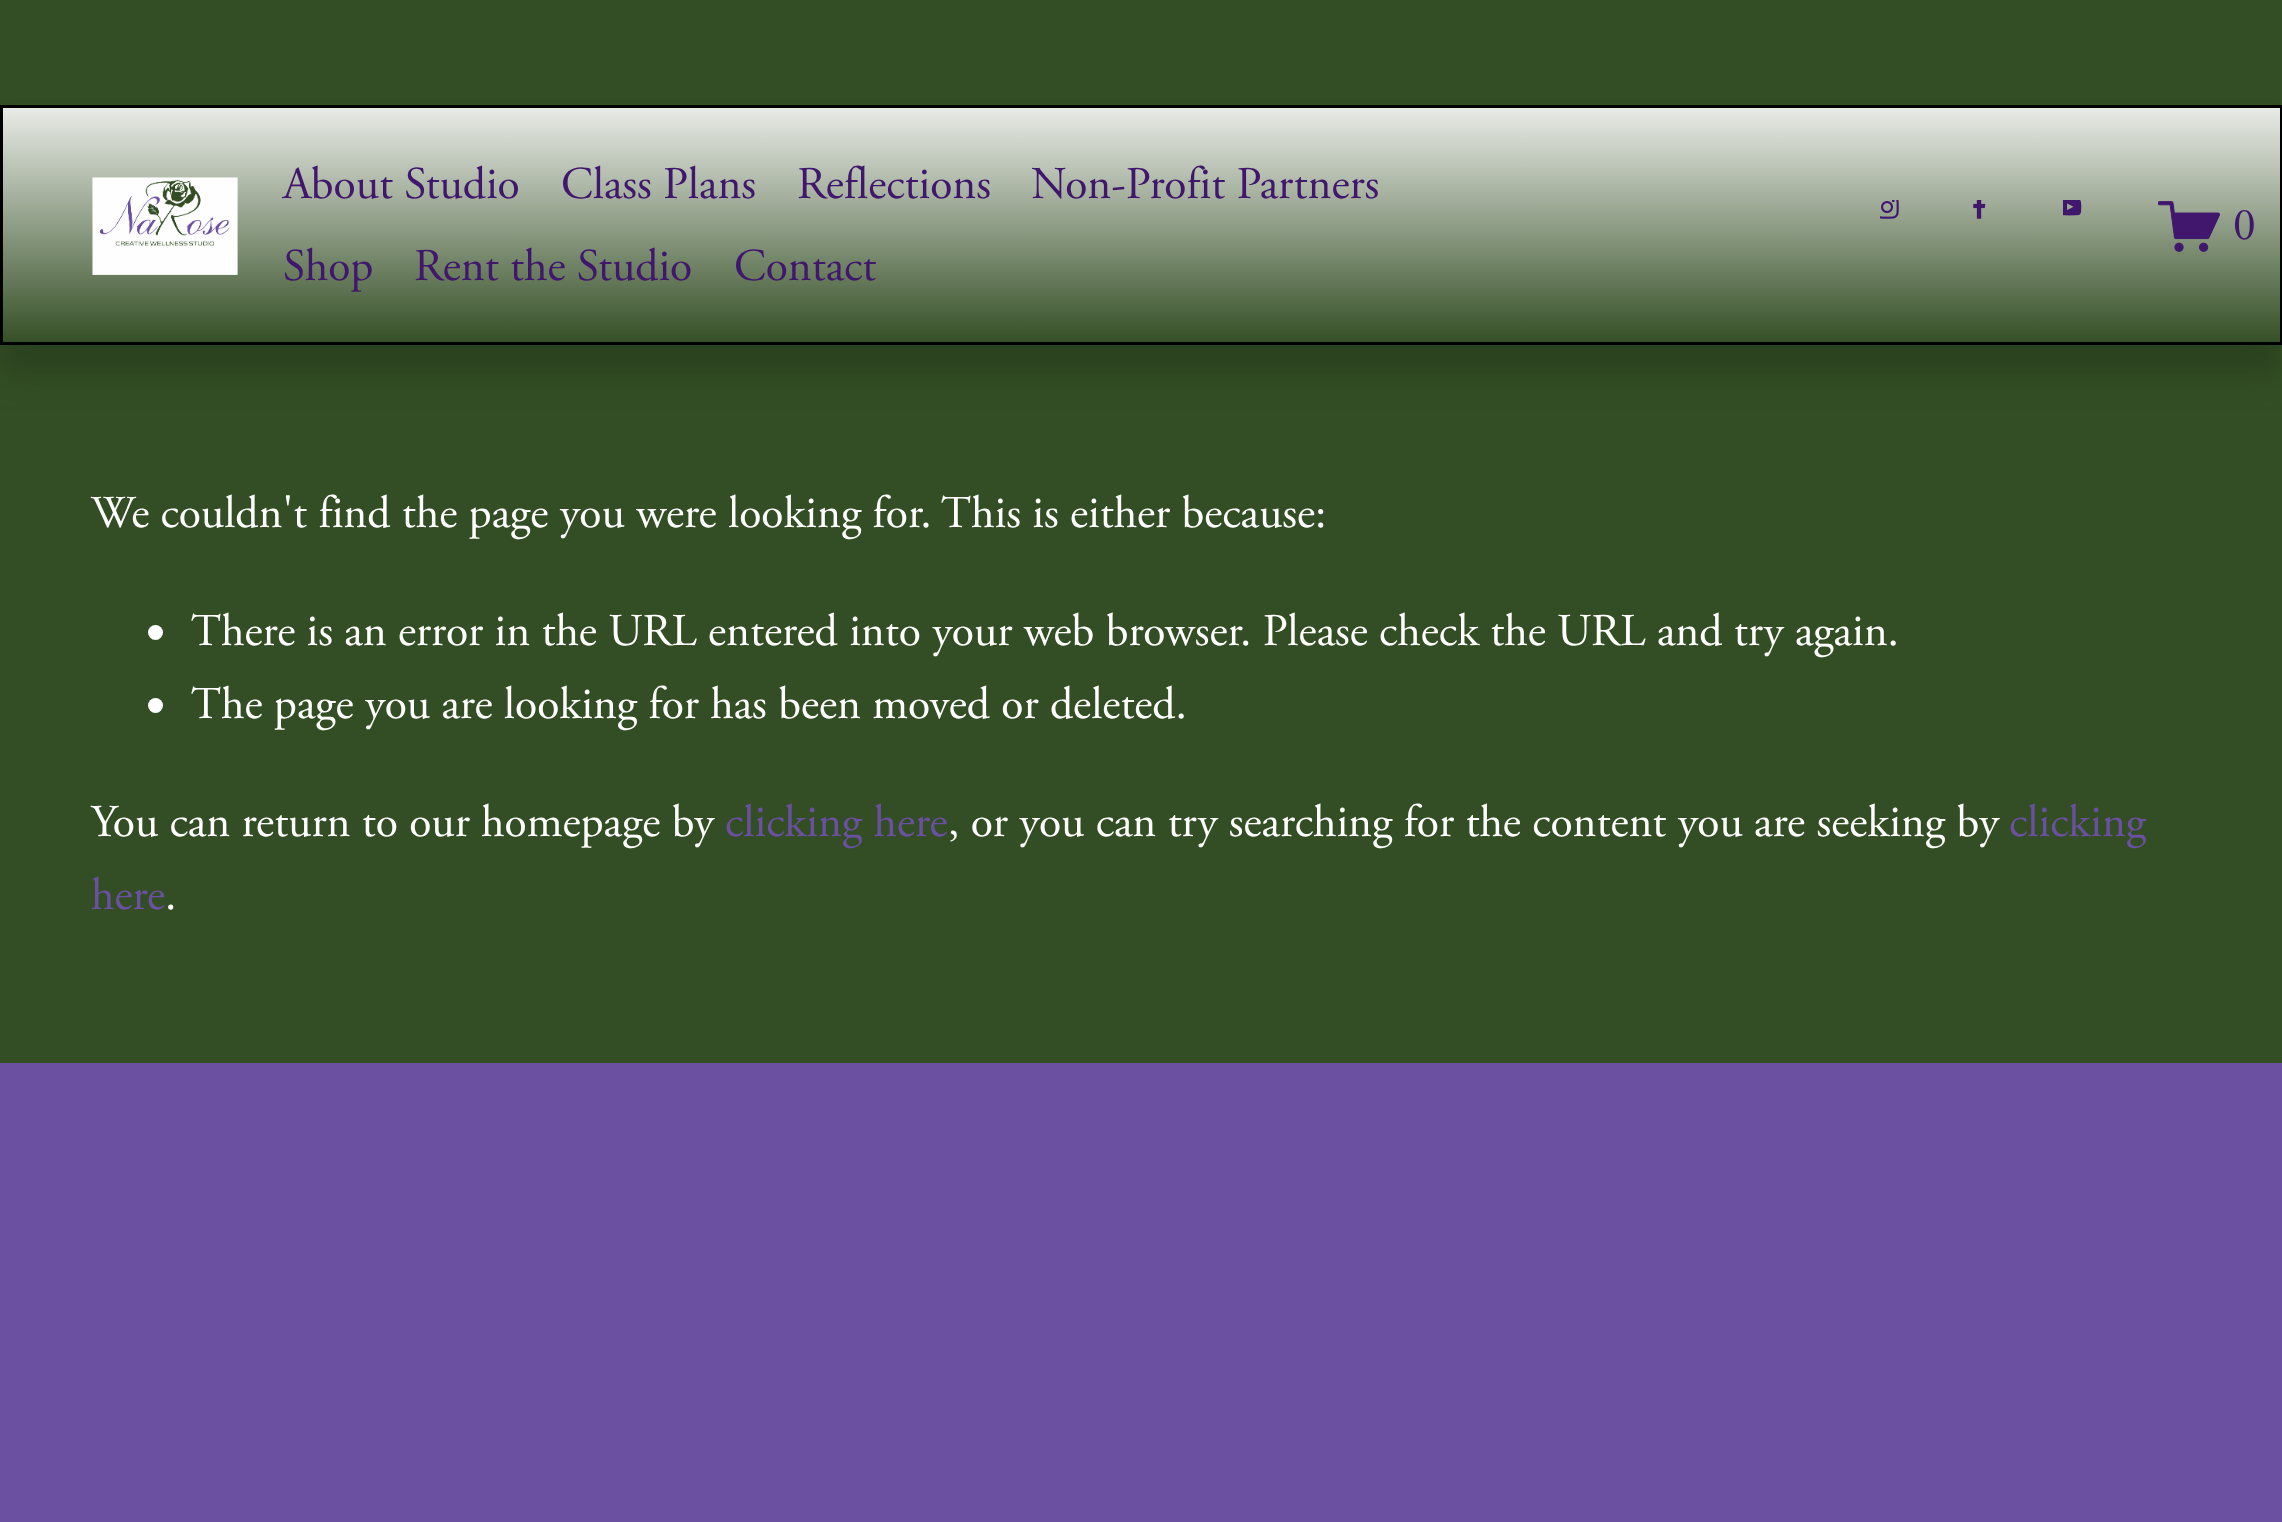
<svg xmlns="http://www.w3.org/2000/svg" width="2282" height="1522">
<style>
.a{font:45.5px Adobe Garamond;fill:#41176d}
.b{font:45.5px Adobe Garamond;fill:#fff}
.c{font:45.5px Adobe Garamond;fill:#6b50a2}
</style>
<defs>
<linearGradient id="g1" gradientUnits="userSpaceOnUse" x1="1141" y1="105" x2="1141" y2="345"><stop offset="0" stop-color="#ebede9"/><stop offset="1" stop-color="#334e24"/></linearGradient>
</defs>
<rect width="100%" height="100%" fill="#334e24"/>
<path fill="#2b421f" filter="blur(15px)" d="M0 135h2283v240H0z"/>
<path fill="url(#g1)" d="M3 108h2277v234H3z"/>
<path fill="none" stroke="#000" stroke-width="3" d="M1.5 106.5h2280v237H1.5z"/>
<image href="1.png" x="92" y="177" width="146" height="98"/>
<image href="2.png" x="1880" y="200" width="19" height="19"/>
<image href="3.png" x="1973" y="200" width="13" height="19"/>
<image href="4.png" x="2063" y="200" width="19" height="16"/>
<image href="5.png" x="2158" y="201" width="62" height="51"/>
<circle fill="#fff" cx="155.5" cy="632.5" r="7.5"/>
<circle fill="#fff" cx="155.5" cy="705.5" r="7.5"/>
<path fill="#6b50a2" d="M0 1063h2282v459H0z"/>
<text class="a" x="283" y="198">About Studio</text>
<text class="a" x="561" y="198">Class Plans</text>
<text class="a" x="797" y="198">Reflections</text>
<text class="a" x="1031" y="198">Non-Profit Partners</text>
<text class="a" x="283" y="280">Shop</text>
<text class="a" x="414" y="280">Rent the Studio</text>
<text class="a" x="734" y="280">Contact</text>
<text class="a" x="2233" y="239">0</text>
<text class="b" x="91" y="527">We couldn't find the page you were looking for. This is either because:</text>
<text class="b" x="191" y="645">There is an error in the URL entered into your web browser. Please check the URL and try again.</text>
<text class="b" x="191" y="718">The page you are looking for has been moved or deleted.</text>
<text class="b" x="91" y="836">You can return to our homepage by</text>
<text class="c" x="725" y="836">clicking here</text>
<text class="b" x="948" y="836">, or you can try searching for the content you are seeking by</text>
<text class="c" x="2009" y="836">clicking</text>
<text class="c" x="91" y="909">here</text>
<text class="b" x="165" y="909">.</text>
</svg>
